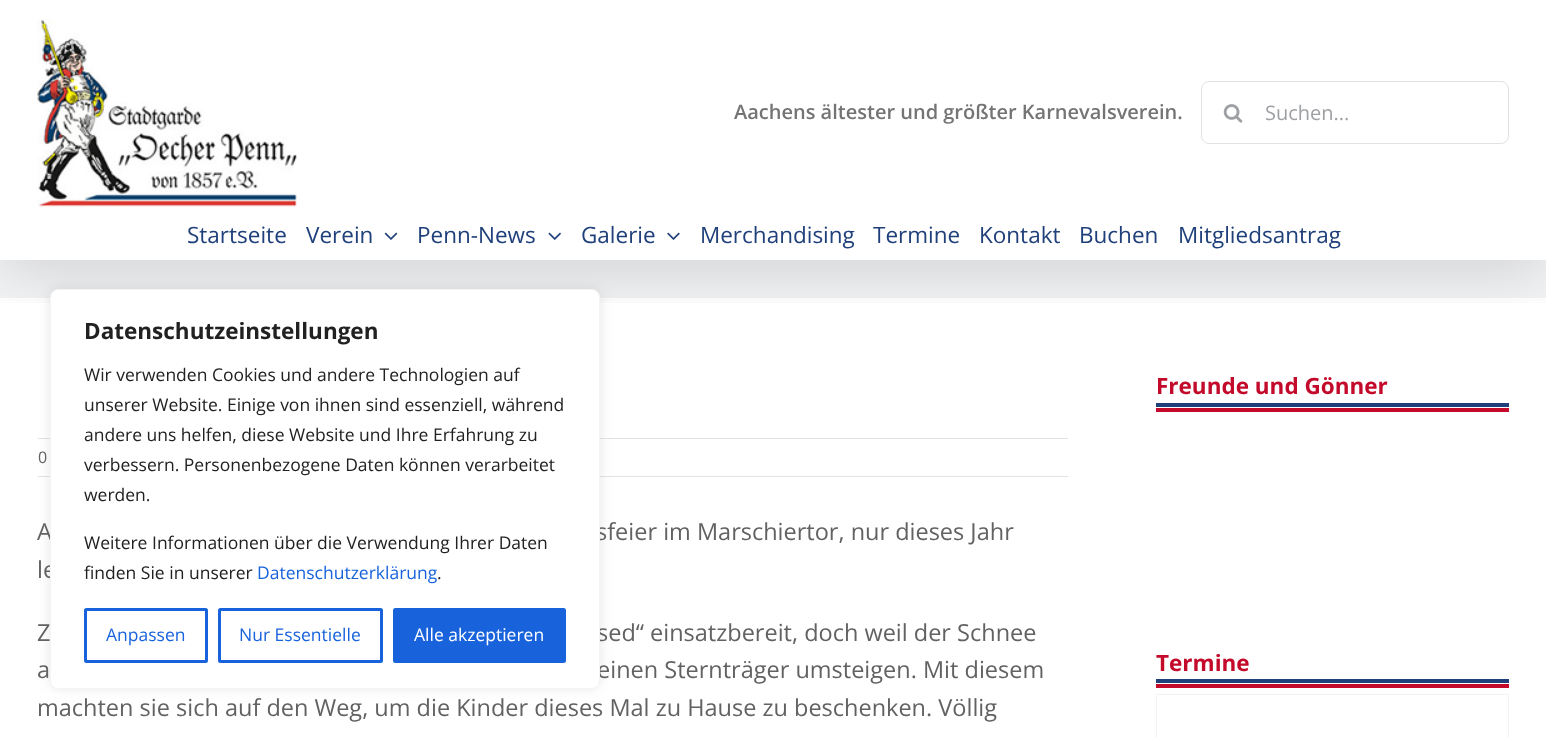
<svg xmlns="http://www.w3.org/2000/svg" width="1546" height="738">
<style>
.a{font:600 20px Open Sans;fill:#747474}
.b{font:20px Open Sans;fill:#9ea0a4}
.c{font:22.5px Open Sans;fill:#20407b}
.d{font:16px Open Sans;fill:#626262}
.e{font:23.5px Open Sans;fill:#626262}
.f{font:bold 22.5px Open Sans;fill:#c30a2a}
.g{font:bold 22.5px Open Sans;fill:#212121}
.h{font:17.5px Open Sans;fill:#212121}
.i{font:17.5px Open Sans;fill:#1863dc}
.j{font:17.5px Open Sans;fill:#fff}
</style>
<defs>
<clipPath id="clip1"><path d="M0 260h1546v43H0z"/></clipPath>
</defs>
<rect width="100%" height="100%" fill="#fff"/>
<path fill="#f2f3f5" d="M0 260h1546v38H0z"/>
<g clip-path="url(#clip1)">
<path fill="#00000024" filter="blur(31px)" d="M3 15h1541v255H3z"/>
</g>
<image href="1.png" x="37" y="19" width="260" height="188"/>
<rect fill="none" stroke="#e2e2e2" x="1201.5" y="81.5" width="307" height="62" rx="7.5"/>
<image href="2.png" x="1223" y="104" width="20" height="19"/>
<image href="3.png" x="384" y="232" width="14" height="8"/>
<image href="4.png" x="548" y="232" width="13" height="8"/>
<image href="5.png" x="667" y="232" width="13" height="8"/>
<path fill="#e2e2e2" d="M38 438h1030v1H38z"/>
<path fill="#e2e2e2" d="M38 476h1030v1H38z"/>
<path fill="#c30a2a" d="M1156 408h353v4H1156z"/>
<path fill="#20407b" d="M1156 403h353v4H1156z"/>
<path fill="#c30a2a" d="M1156 684h353v4H1156z"/>
<path fill="#20407b" d="M1156 679h353v4H1156z"/>
<path fill="none" stroke="#f2f3f5" d="M1156.5 694.5h352v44H1156.5z"/>
<rect fill="#acabab4d" filter="blur(6px)" x="50" y="288" width="550" height="400" rx="8"/>
<text class="a" x="734" y="119">Aachens ältester und größter Karnevalsverein.</text>
<text class="b" x="1265" y="120">Suchen...</text>
<text class="c" x="187" y="243">Startseite</text>
<text class="c" x="306" y="243">Verein</text>
<text class="c" x="417" y="243">Penn-News</text>
<text class="c" x="581" y="243">Galerie</text>
<text class="c" x="700" y="243">Merchandising</text>
<text class="c" x="873" y="243">Termine</text>
<text class="c" x="979" y="243">Kontakt</text>
<text class="c" x="1079" y="243">Buchen</text>
<text class="c" x="1178" y="243">Mitgliedsantrag</text>
<text class="d" x="38" y="463">0</text>
<text class="e" x="37" y="540">A</text>
<text class="e" x="596" y="540">sfeier im Marschiertor, nur dieses Jahr</text>
<text class="e" x="37" y="578">le</text>
<text class="e" x="37" y="641">Z</text>
<text class="e" x="597" y="641">sed“ einsatzbereit, doch weil der Schnee</text>
<text class="e" x="37" y="678">a</text>
<text class="e" x="597" y="678">einen Sternträger umsteigen. Mit diesem</text>
<text class="e" x="37" y="716">machten sie sich auf den Weg, um die Kinder dieses Mal zu Hause zu beschenken. Völlig</text>
<text class="f" x="1156" y="394">Freunde und Gönner</text>
<text class="f" x="1156" y="671">Termine</text>
<rect fill="#fff" stroke="#f4f4f4" x="50.5" y="289.5" width="549" height="399" rx="7.5"/>
<text class="g" x="84" y="339">Datenschutzeinstellungen</text>
<text class="h" x="84" y="381">Wir verwenden Cookies und andere Technologien auf</text>
<text class="h" x="84" y="411">unserer Website. Einige von ihnen sind essenziell, während</text>
<text class="h" x="84" y="441">andere uns helfen, diese Website und Ihre Erfahrung zu</text>
<text class="h" x="84" y="471">verbessern. Personenbezogene Daten können verarbeitet</text>
<text class="h" x="84" y="501">werden.</text>
<text class="h" x="84" y="549">Weitere Informationen über die Verwendung Ihrer Daten</text>
<text class="h" x="84" y="579">finden Sie in unserer</text>
<text class="i" x="257" y="579">Datenschutzerklärung</text>
<text class="h" x="437" y="579">.</text>
<rect fill="none" stroke="#1863dc" stroke-width="3" x="85.5" y="609.5" width="121" height="52" rx="1"/>
<text class="i" x="106" y="641">Anpassen</text>
<rect fill="none" stroke="#1863dc" stroke-width="3" x="219.5" y="609.5" width="162" height="52" rx="1"/>
<text class="i" x="239" y="641">Nur Essentielle</text>
<rect fill="#1863dc" stroke="#1863dc" stroke-width="3" x="394.5" y="609.5" width="170" height="52" rx="1"/>
<text class="j" x="414" y="641">Alle akzeptieren</text>
</svg>
